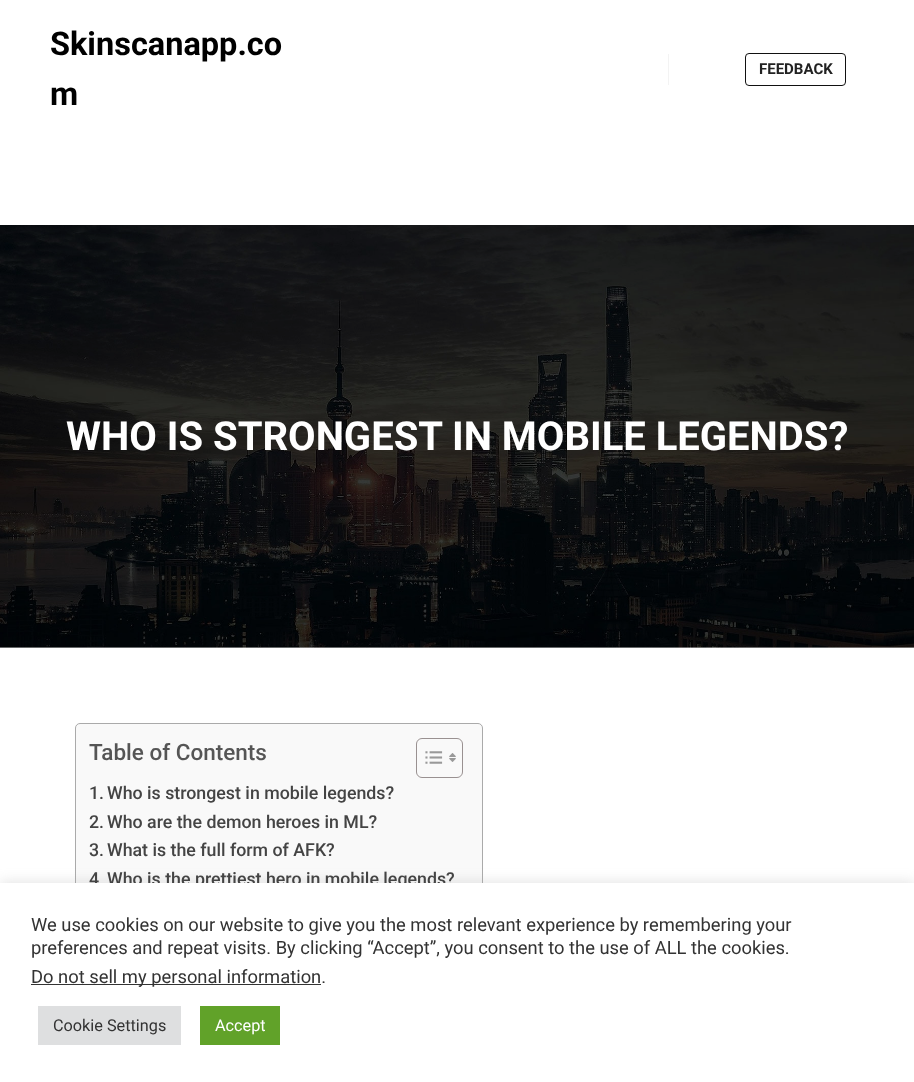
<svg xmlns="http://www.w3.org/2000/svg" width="914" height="1082">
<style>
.a{font:bold 32.5px Roboto;fill:#000}
.b{font:bold 15px Roboto;fill:#222}
.c{font:bold 40px Roboto;fill:#fff}
.d{font:500 22.5px Roboto;fill:#555}
.e{font:500 17.8px Roboto;fill:#444}
.f{font:18.35px Roboto;fill:#333}
.g{font:16.25px Roboto;fill:#333}
.h{font:16.25px Roboto;fill:#fff}
</style>
<rect width="100%" height="100%" fill="#fff"/>
<path fill="#ccc" d="M0 647h914v1H0z"/>
<path fill="#f3f3f3" d="M668 54h1v31H668z"/>
<rect fill="none" stroke="#111" x="745.5" y="53.5" width="100" height="32" rx="3.5"/>
<image href="1.png" x="0" y="225" width="914" height="423"/>
<rect fill="#f9f9f9" stroke="#aaa" x="75.5" y="723.5" width="407" height="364" rx="4.5"/>
<rect fill="none" stroke="#999191" x="416.5" y="738.5" width="46" height="39" rx="5.5"/>
<image href="2.png" x="425" y="751" width="18" height="13"/>
<image href="3.png" x="449" y="753" width="7" height="9"/>
<path fill="#acabab4d" filter="blur(6px)" d="M0 881h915v200H0z"/>
<text class="a" x="50" y="55">Skinscanapp.co</text>
<text class="a" x="50" y="105">m</text>
<text class="b" x="759" y="74">FEEDBACK</text>
<text class="c" x="66" y="450">WHO IS STRONGEST IN MOBILE LEGENDS?</text>
<text class="d" x="89" y="760">Table of Contents</text>
<text class="e" x="89" y="799">1.</text>
<text class="e" x="107" y="799">Who is strongest in mobile legends?</text>
<text class="e" x="89" y="828">2.</text>
<text class="e" x="107" y="828">Who are the demon heroes in ML?</text>
<text class="e" x="89" y="856">3.</text>
<text class="e" x="107" y="856">What is the full form of AFK?</text>
<text class="e" x="89" y="885">4</text>
<text class="e" x="107" y="885">Who is the prettiest hero in mobile legends?</text>
<path fill="#fff" d="M0 883h914v199H0z"/>
<text class="f" x="31" y="931">We use cookies on our website to give you the most relevant experience by remembering your</text>
<text class="f" x="31" y="954">preferences and repeat visits. By clicking “Accept”, you consent to the use of ALL the cookies.</text>
<path fill="#333" d="M31 984h290v1H31z"/>
<text class="f" x="31" y="983">Do not sell my personal information.</text>
<path fill="#dedfe0" d="M38 1006h143v39H38z"/>
<text class="g" x="53" y="1031">Cookie Settings</text>
<path fill="#61a229" d="M200 1006h80v39H200z"/>
<text class="h" x="215" y="1031">Accept</text>
</svg>
